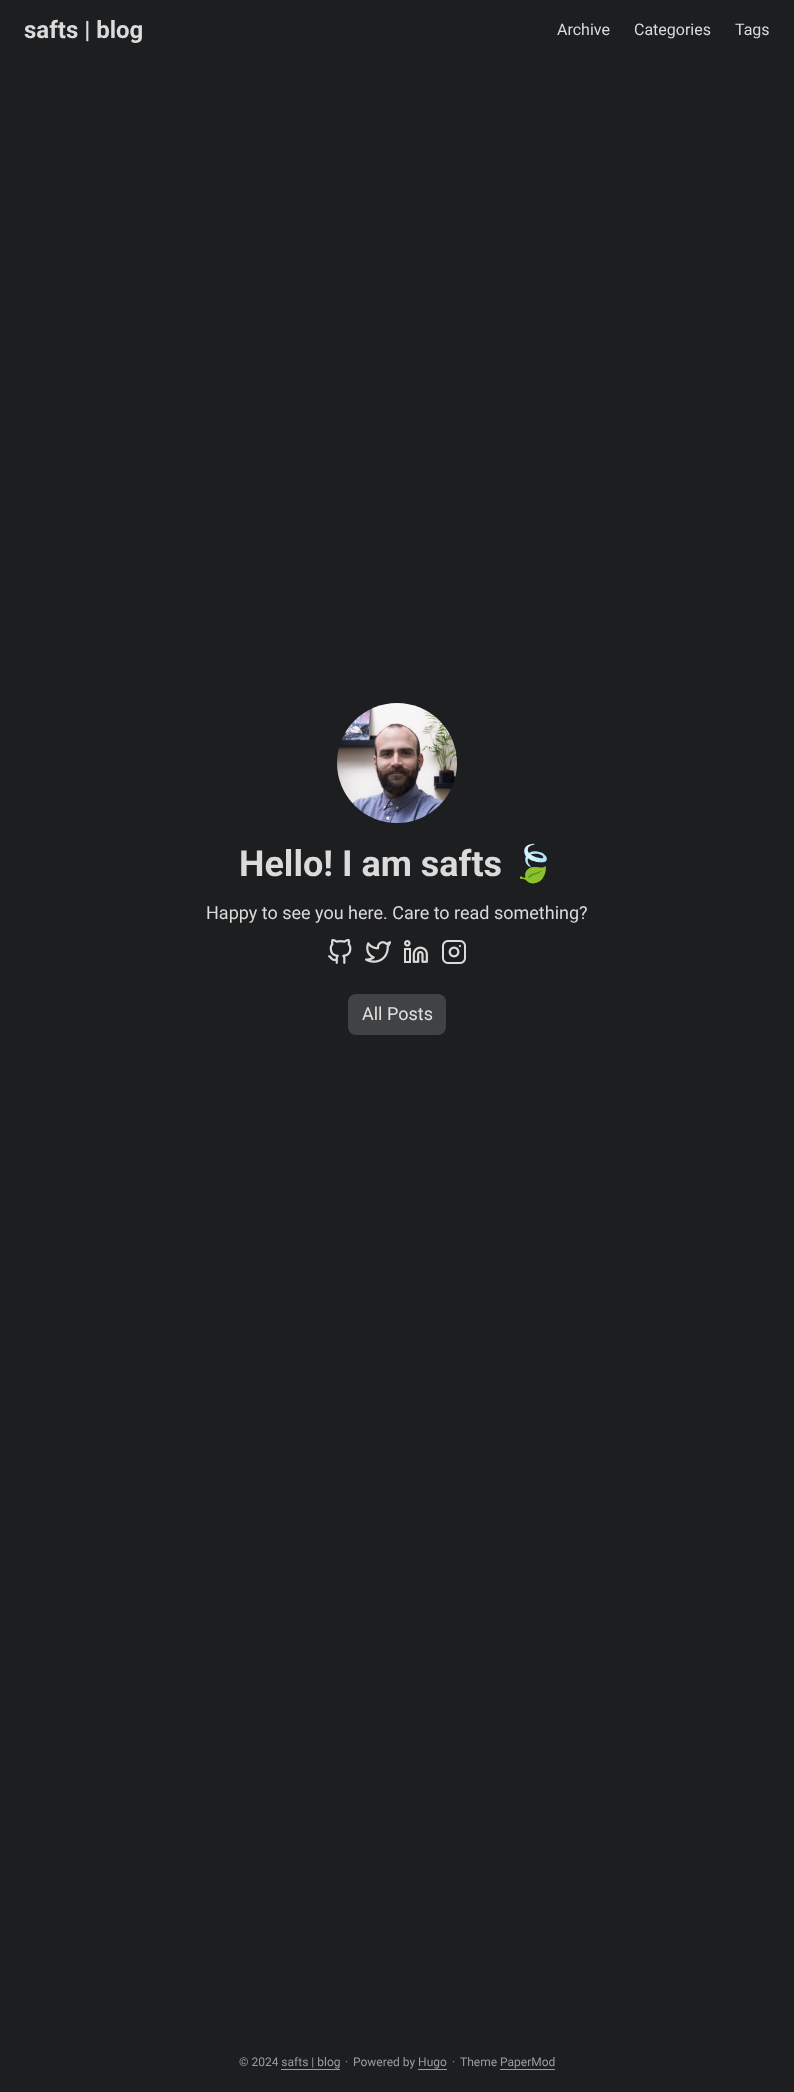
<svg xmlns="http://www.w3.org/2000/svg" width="794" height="2092">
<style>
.a{font:bold 24px Roboto;fill:#dbdbdb}
.b{font:16px Roboto;fill:#dbdbdb}
.c{font:bold 36px Roboto;fill:#dbdbdb}
.d{font:bold 36px Noto Color Emoji;fill:#dbdbdb}
.e{font:18px Roboto;fill:#dbdbdb}
.f{font:18px Roboto;fill:#e1e1e1}
.g{font:12px Roboto;fill:#9c9c9d}
</style>
<rect width="100%" height="100%" fill="#1d1e20"/>
<image href="1.png" x="337" y="703" width="120" height="120"/>
<image href="2.png" x="328" y="939" width="24" height="25"/>
<image href="3.png" x="365" y="941" width="26" height="22"/>
<image href="4.png" x="404" y="940" width="24" height="23"/>
<image href="5.png" x="442" y="940" width="24" height="24"/>
<rect fill="#414244" x="348" y="994" width="98" height="41" rx="8"/>
<path fill="#9c9c9d" d="M281 2069h59v1H281z"/>
<path fill="#9c9c9d" d="M418 2069h29v1H418z"/>
<path fill="#9c9c9d" d="M500 2069h55v1H500z"/>
<text class="a" x="24" y="38">safts | blog</text>
<text class="b" x="557" y="35">Archive</text>
<text class="b" x="634" y="35">Categories</text>
<text class="b" x="735" y="35">Tags</text>
<text class="c" x="239" y="876">Hello! I am safts</text>
<text class="d" x="511" y="876">🍃</text>
<text class="e" x="206" y="919">Happy to see you here. Care to read something?</text>
<text class="f" x="362" y="1020">All Posts</text>
<text class="g" x="239" y="2066">© 2024 safts | blog</text>
<text class="g" x="345" y="2066">·</text>
<text class="g" x="353" y="2066">Powered by Hugo</text>
<text class="g" x="452" y="2066">·</text>
<text class="g" x="460" y="2066">Theme PaperMod</text>
</svg>
